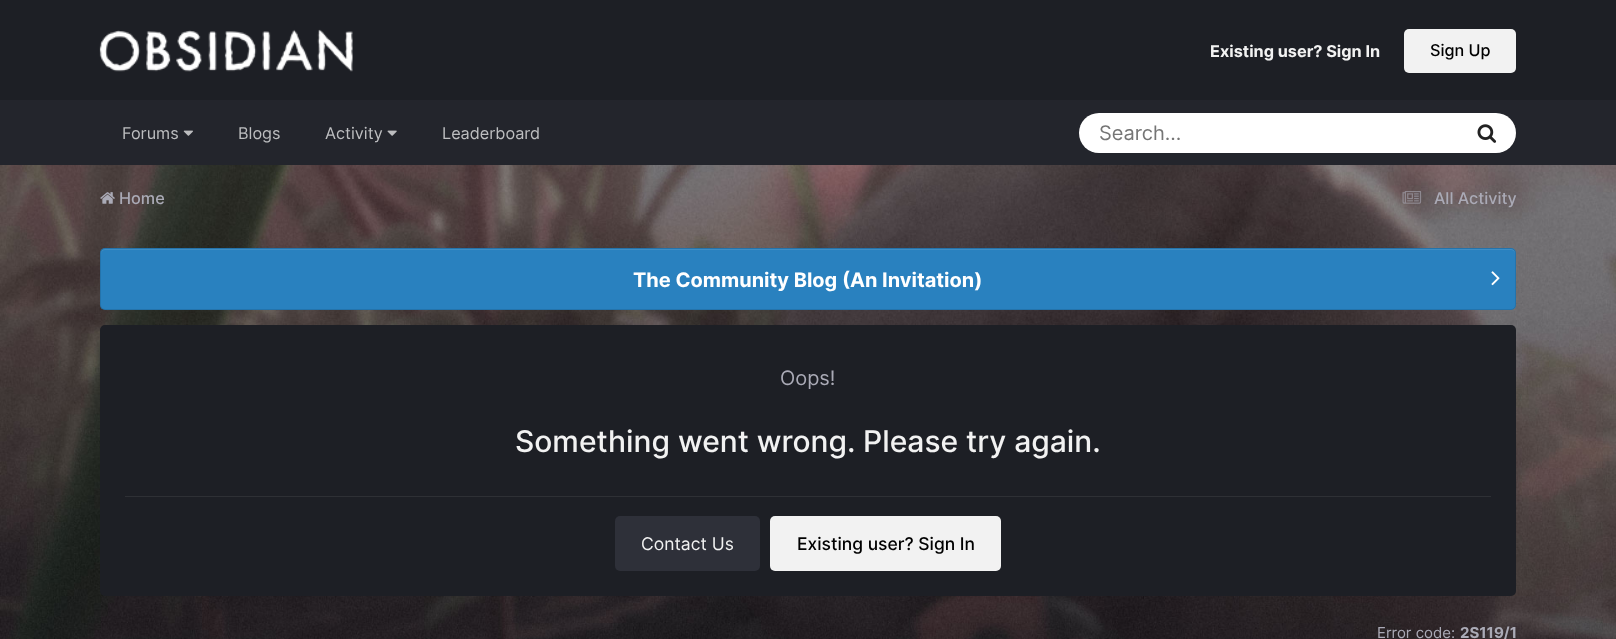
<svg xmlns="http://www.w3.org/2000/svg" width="1616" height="639">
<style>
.a{font:bold 16.25px Inter;fill:#f2f2f2}
.b{font:500 16.25px Inter;fill:#000}
.c{font:16.25px Inter;fill:#bdbec0}
.d{font:20px Inter;fill:#757575}
.e{font:500 16.25px Inter;fill:#aaaab6}
.f{font:bold 20px Inter;fill:#fff}
.g{font:20px Inter;fill:#aaaab6}
.h{font:500 30px Inter;fill:#f2f2f2}
.i{font:17.5px Inter;fill:#f2f2f2}
.j{font:500 17.5px Inter;fill:#000}
.k{font:15px Inter;fill:#aaaab6}
.l{font:bold 15px Inter;fill:#aaaab6}
</style>
<rect width="100%" height="100%" fill="#fff"/>
<path fill="#1d1f25" d="M0 0h1616v100H0z"/>
<image href="1.png" x="99" y="29" width="254" height="43"/>
<rect fill="#f2f2f2" x="1404" y="29" width="112" height="44" rx="5"/>
<path fill="#23252c" d="M0 100h1616v65H0z"/>
<image href="2.png" x="183" y="130" width="10" height="6"/>
<image href="3.png" x="387" y="130" width="10" height="6"/>
<rect fill="#fff" x="1079" y="113" width="437" height="40" rx="20"/>
<image href="4.png" x="1477" y="124" width="20" height="19"/>
<image href="5.png" x="0" y="165" width="1616" height="474"/>
<image href="6.png" x="100" y="192" width="15" height="12"/>
<image href="7.png" x="1402" y="191" width="20" height="13"/>
<rect fill="#2981bf" x="100" y="248" width="1416" height="62" rx="5"/>
<path fill="#3e8ec5" d="M105 250h1406c2 0 4 2 4 4v-1c0-2-2-4-4-4h-1406c-2 0-4 2-4 4v1c0-2 2-4 4-4z"/>
<rect fill="none" stroke="#0000001a" x="100.5" y="248.5" width="1415" height="61" rx="4.5"/>
<image href="8.png" x="1491" y="271" width="9" height="15"/>
<rect fill="#1d1f25" x="100" y="325" width="1416" height="271" rx="5"/>
<path fill="#2e3035" d="M125 496h1366v1H125z"/>
<rect fill="#2e3039" x="615" y="516" width="145" height="55" rx="5"/>
<rect fill="#f2f2f2" x="770" y="516" width="231" height="55" rx="5"/>
<text class="a" x="1210" y="57">Existing user? Sign In</text>
<text class="b" x="1430" y="56">Sign Up</text>
<text class="c" x="122" y="139">Forums</text>
<text class="c" x="238" y="139">Blogs</text>
<text class="c" x="325" y="139">Activity</text>
<text class="c" x="442" y="139">Leaderboard</text>
<text class="d" x="1099" y="140">Search...</text>
<text class="e" x="119" y="204">Home</text>
<text class="e" x="1434" y="204">All Activity</text>
<text class="f" x="633" y="287">The Community Blog (An Invitation)</text>
<text class="g" x="780" y="385">Oops!</text>
<text class="h" x="515" y="452">Something went wrong. Please try again.</text>
<text class="i" x="641" y="550">Contact Us</text>
<text class="j" x="797" y="550">Existing user? Sign In</text>
<text class="k" x="1377" y="638">Error code:</text>
<text class="l" x="1460" y="638">2S119/1</text>
</svg>
